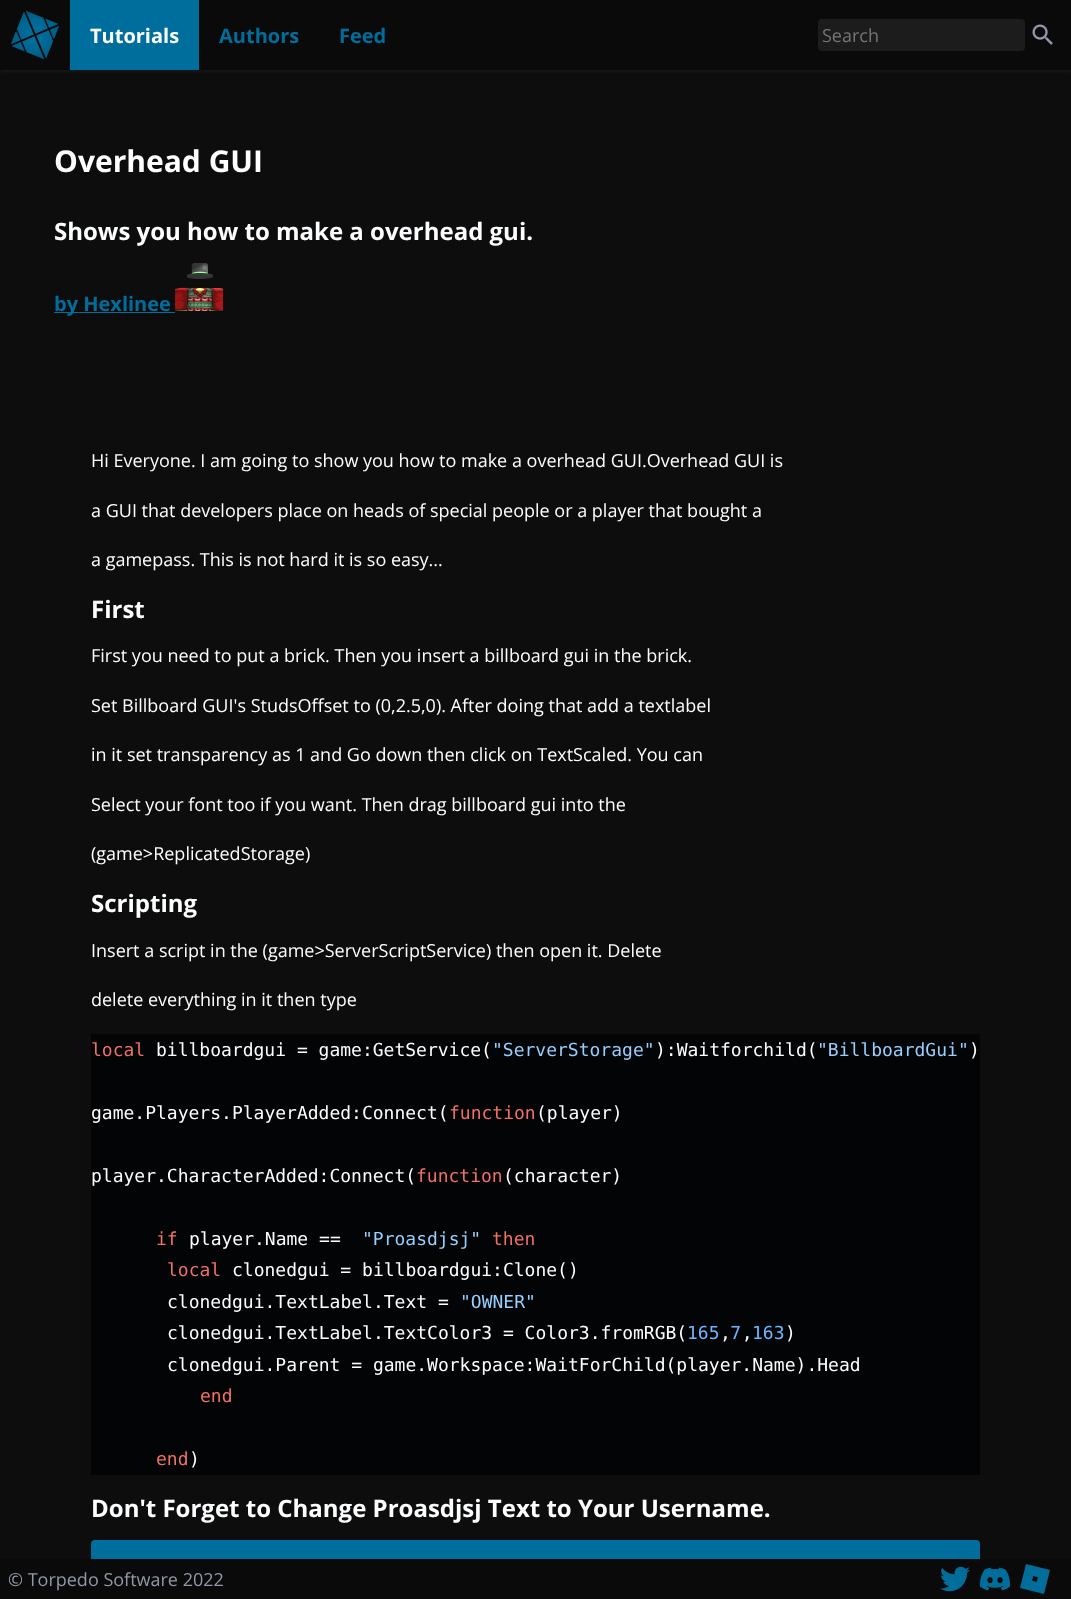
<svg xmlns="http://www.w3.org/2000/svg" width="1071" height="1599">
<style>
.a{font:bold 20px Open Sans;fill:#fdfeff}
.b{font:bold 20px Open Sans;fill:#006e9d}
.c{font:18px Open Sans;fill:#757575}
.d{font:bold 30px Open Sans;fill:#fdfeff}
.e{font:bold 24px Open Sans;fill:#fdfeff}
.f{font:18px Open Sans;fill:#fdfeff}
.g{font:18px DejaVu Sans Mono;fill:#f47067}
.h{font:18px DejaVu Sans Mono;fill:#fdfeff}
.i{font:18px DejaVu Sans Mono;fill:#96d0ff}
.j{font:18px DejaVu Sans Mono;fill:#6cb6ff}
.k{font:18px Open Sans;fill:#9198a7}
</style>
<rect width="100%" height="100%" fill="#0d0d0e"/>
<path fill="#1c1c1d" filter="blur(2.5px)" d="M1 1h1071v70H1z"/>
<path fill="#0a0a0a" d="M0 0h1071v70H0z"/>
<image href="1.png" x="10" y="10" width="50" height="50"/>
<path fill="#006e9d" d="M70 0h129v70H70z"/>
<rect fill="#1c1c1d" x="818" y="19" width="207" height="32" rx="4"/>
<image href="2.png" x="1032" y="24" width="21" height="21"/>
<path fill="#006e9d" d="M54 312h121v1H54z"/>
<image href="3.png" x="175" y="263" width="48" height="48"/>
<path fill="#030405" d="M91 1034h889v441H91z"/>
<rect fill="#006e9d" x="91" y="1540" width="889" height="47" rx="4"/>
<path fill="#0a0a0a" d="M0 1559h1071v40H0z"/>
<image href="4.png" x="940" y="1566" width="30" height="26"/>
<image href="5.png" x="980" y="1567" width="30" height="24"/>
<path fill="#006d9b" d="M1036.5 1582l-4.5-1.5l1.5-4.5l4.5 1.5zm-10.5-18l-6 24l24 6l6-24z"/>
<text class="a" x="90" y="43">Tutorials</text>
<text class="b" x="219" y="43">Authors</text>
<text class="b" x="339" y="43">Feed</text>
<text class="c" x="822" y="42">Search</text>
<text class="d" x="54" y="172">Overhead GUI</text>
<text class="e" x="54" y="240">Shows you how to make a overhead gui.</text>
<text class="b" x="54" y="311">by Hexlinee</text>
<text class="f" x="91" y="467">Hi Everyone. I am going to show you how to make a overhead GUI.Overhead GUI is</text>
<text class="f" x="91" y="517">a GUI that developers place on heads of special people or a player that bought a</text>
<text class="f" x="91" y="566">a gamepass. This is not hard it is so easy...</text>
<text class="e" x="91" y="618">First</text>
<text class="f" x="91" y="662">First you need to put a brick. Then you insert a billboard gui in the brick.</text>
<text class="f" x="91" y="712">Set Billboard GUI's StudsOffset to (0,2.5,0). After doing that add a textlabel</text>
<text class="f" x="91" y="761">in it set transparency as 1 and Go down then click on TextScaled. You can</text>
<text class="f" x="91" y="811">Select your font too if you want. Then drag billboard gui into the</text>
<text class="f" x="91" y="860">(game&gt;ReplicatedStorage)</text>
<text class="e" x="91" y="912">Scripting</text>
<text class="f" x="91" y="957">Insert a script in the (game&gt;ServerScriptService) then open it. Delete</text>
<text class="f" x="91" y="1006">delete everything in it then type</text>
<text class="g" x="91" y="1056">local</text>
<text class="h" x="156" y="1056">billboardgui = game:GetService(</text>
<text class="i" x="492" y="1056">"ServerStorage"</text>
<text class="h" x="655" y="1056">):Waitforchild(</text>
<text class="i" x="817" y="1056">"BillboardGui"</text>
<text class="h" x="969" y="1056">)</text>
<text class="h" x="91" y="1119">game.Players.PlayerAdded:Connect(</text>
<text class="g" x="449" y="1119">function</text>
<text class="h" x="536" y="1119">(player)</text>
<text class="h" x="91" y="1182">player.CharacterAdded:Connect(</text>
<text class="g" x="416" y="1182">function</text>
<text class="h" x="503" y="1182">(character)</text>
<text class="g" x="156" y="1245">if</text>
<text class="h" x="189" y="1245">player.Name ==</text>
<text class="i" x="362" y="1245">"Proasdjsj"</text>
<text class="g" x="492" y="1245">then</text>
<text class="g" x="167" y="1276">local</text>
<text class="h" x="232" y="1276">clonedgui = billboardgui:Clone()</text>
<text class="h" x="167" y="1308">clonedgui.TextLabel.Text =</text>
<text class="i" x="460" y="1308">"OWNER"</text>
<text class="h" x="167" y="1339">clonedgui.TextLabel.TextColor3 = Color3.fromRGB(</text>
<text class="j" x="687" y="1339">165 7 163</text>
<text class="h" x="785" y="1339">)</text>
<text class="h" x="720" y="1339">, ,</text>
<text class="h" x="167" y="1371">clonedgui.Parent = game.Workspace:WaitForChild(player.Name).Head</text>
<text class="g" x="200" y="1402">end</text>
<text class="g" x="156" y="1465">end</text>
<text class="h" x="189" y="1465">)</text>
<text class="e" x="91" y="1517">Don't Forget to Change Proasdjsj Text to Your Username.</text>
<text class="k" x="8" y="1586">© Torpedo Software 2022</text>
</svg>
